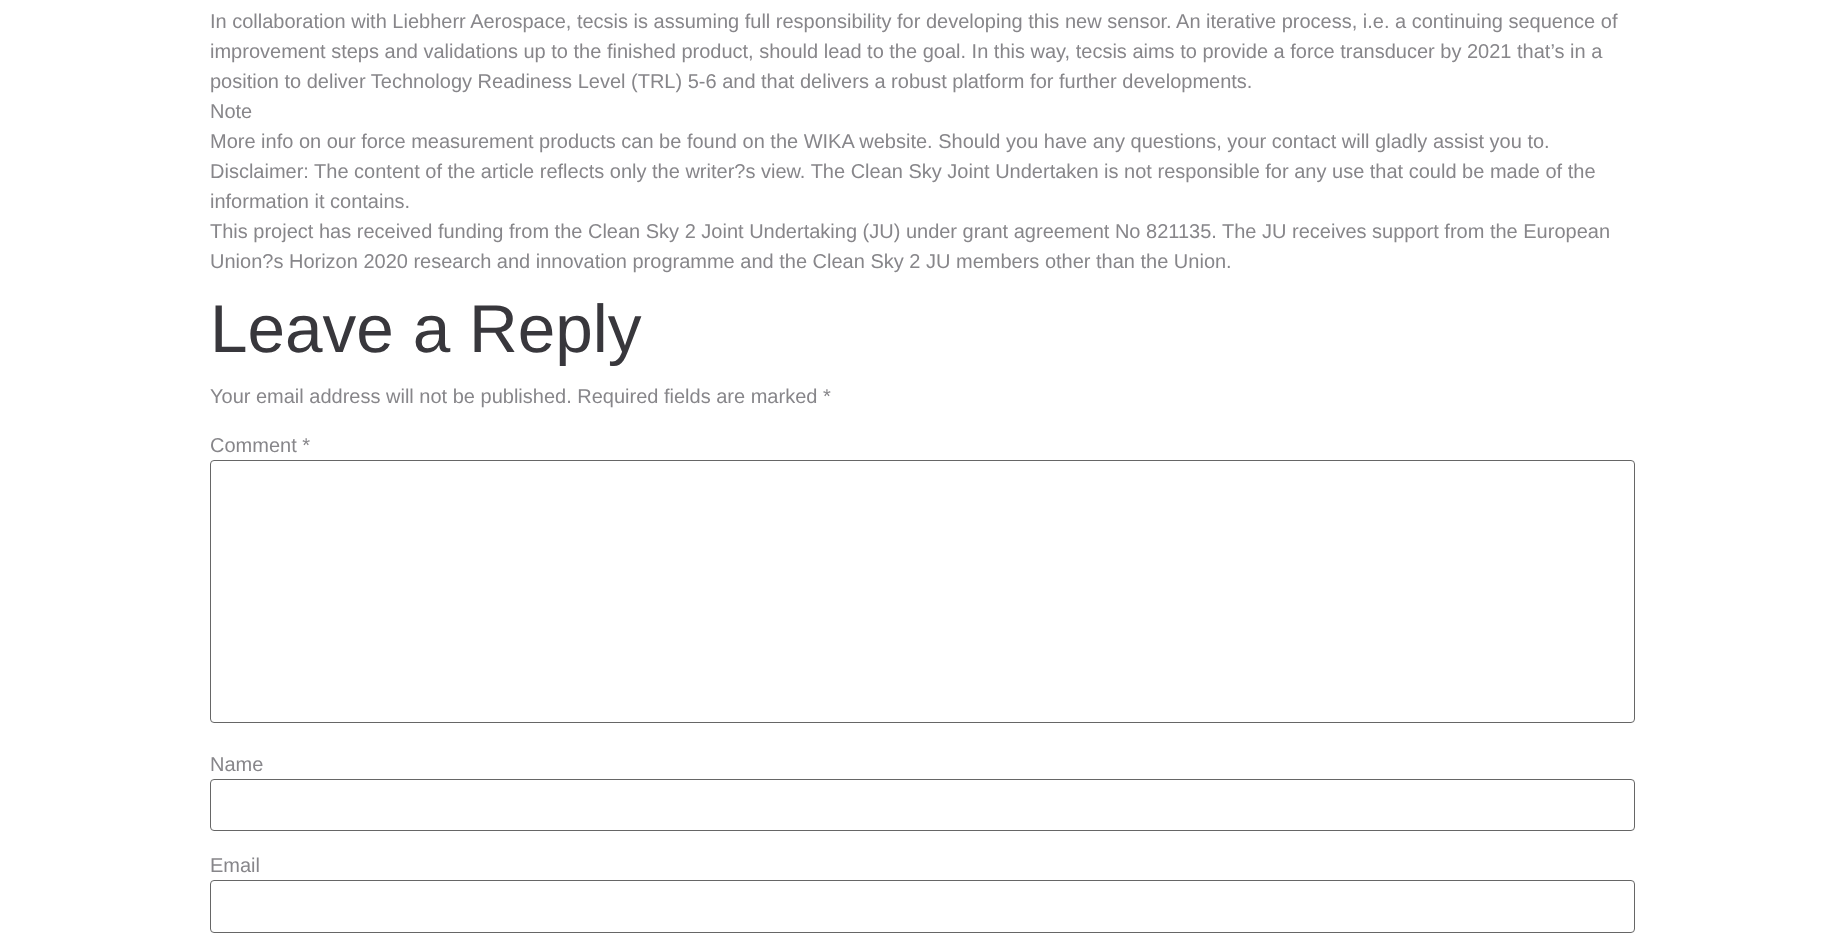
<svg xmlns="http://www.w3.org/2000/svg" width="1844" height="933">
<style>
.a{font:20px Liberation Sans;fill:#87868a}
.b{font:67.5px Liberation Sans;fill:#38373c}
</style>
<rect width="100%" height="100%" fill="#fff"/>
<rect fill="none" stroke="#666" x="210.5" y="460.5" width="1424" height="262" rx="3.5"/>
<rect fill="none" stroke="#666" x="210.5" y="779.5" width="1424" height="51" rx="3.5"/>
<rect fill="none" stroke="#666" x="210.5" y="880.5" width="1424" height="52" rx="3.5"/>
<text class="a" x="210" y="28">In collaboration with Liebherr Aerospace, tecsis is assuming full responsibility for developing this new sensor. An iterative process, i.e. a continuing sequence of</text>
<text class="a" x="210" y="58">improvement steps and validations up to the finished product, should lead to the goal. In this way, tecsis aims to provide a force transducer by 2021 that’s in a</text>
<text class="a" x="210" y="88">position to deliver Technology Readiness Level (TRL) 5-6 and that delivers a robust platform for further developments.</text>
<text class="a" x="210" y="118">Note</text>
<text class="a" x="210" y="148">More info on our force measurement products can be found on the WIKA website. Should you have any questions, your contact will gladly assist you to.</text>
<text class="a" x="210" y="178">Disclaimer: The content of the article reflects only the writer?s view. The Clean Sky Joint Undertaken is not responsible for any use that could be made of the</text>
<text class="a" x="210" y="208">information it contains.</text>
<text class="a" x="210" y="238">This project has received funding from the Clean Sky 2 Joint Undertaking (JU) under grant agreement No 821135. The JU receives support from the European</text>
<text class="a" x="210" y="268">Union?s Horizon 2020 research and innovation programme and the Clean Sky 2 JU members other than the Union.</text>
<text class="b" x="210" y="352">Leave a Reply</text>
<text class="a" x="210" y="403">Your email address will not be published. Required fields are marked *</text>
<text class="a" x="210" y="452">Comment *</text>
<text class="a" x="210" y="771">Name</text>
<text class="a" x="210" y="872">Email</text>
</svg>
